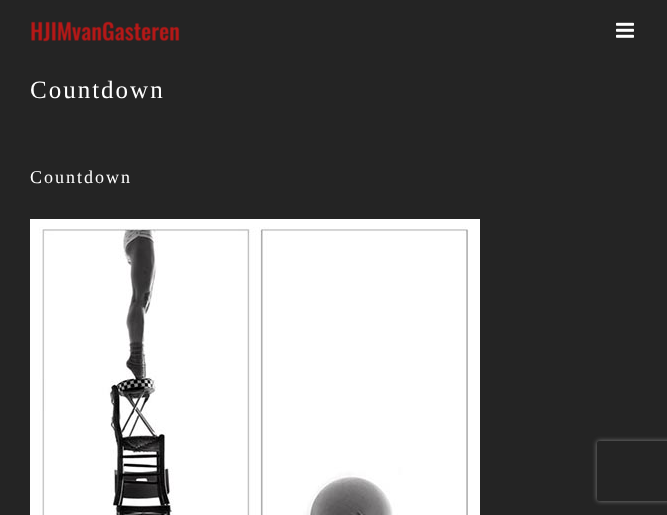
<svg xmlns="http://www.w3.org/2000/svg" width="667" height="515">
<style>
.a{font:25px Liberation Serif;letter-spacing:2px;fill:#fff}
.b{font:18px Liberation Serif;letter-spacing:2px;fill:#fff}
</style>
<defs>
<clipPath id="clip1"><path d="M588 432h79v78h-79zm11 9h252c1 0 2 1 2 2v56c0 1-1 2-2 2h-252c-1 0-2-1-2-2v-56c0-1 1-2 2-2z" clip-rule="evenodd"/></clipPath>
</defs>
<rect width="100%" height="100%" fill="#242424"/>
<image href="1.png" x="31" y="21" width="149" height="21"/>
<image href="2.png" x="616" y="22" width="18" height="16"/>
<image href="3.png" x="30" y="219" width="450" height="296"/>
<g clip-path="url(#clip1)">
<rect fill="#808080" filter="blur(2.5px)" x="597" y="441" width="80" height="60" rx="2"/>
</g>
<text class="a" x="30" y="98">Countdown</text>
<text class="b" x="30" y="183">Countdown</text>
</svg>
